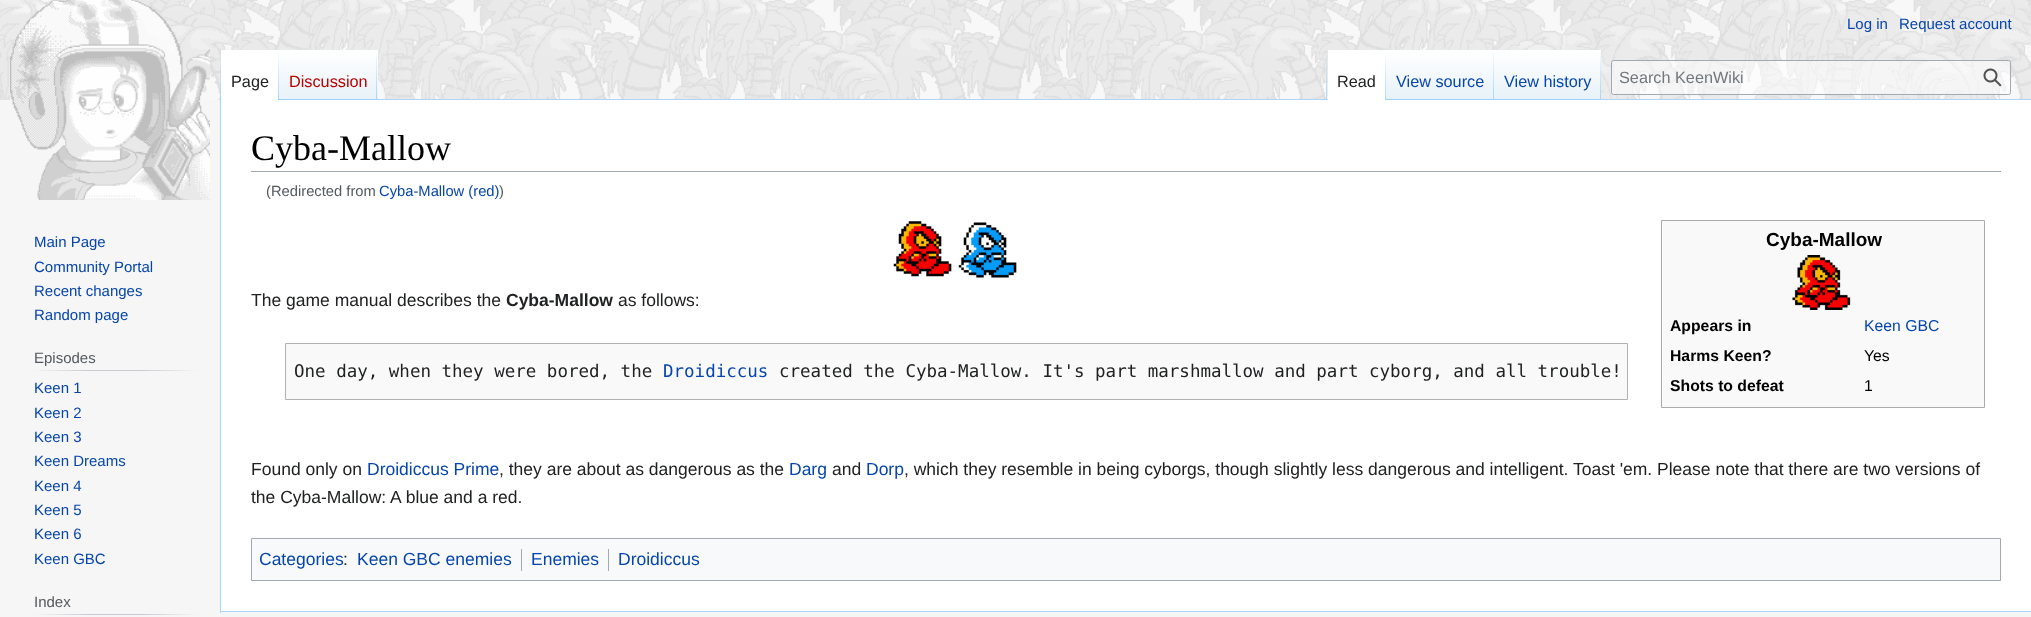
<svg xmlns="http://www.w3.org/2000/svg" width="2031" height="617">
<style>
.a{font:15px Liberation Sans;fill:#0645ad}
.b{font:16.25px Liberation Sans;fill:#202122}
.c{font:16.25px Liberation Sans;fill:#ba0000}
.d{font:16.25px Liberation Sans;fill:#0645ad}
.e{font:16.25px Liberation Sans;fill:#72777d}
.f{font:15px Liberation Sans;fill:#54595d}
.g{font:36px Liberation Serif;fill:#000}
.h{font:14.75px Liberation Sans;fill:#54595d}
.i{font:14.75px Liberation Sans;fill:#0645ad}
.j{font:17.5px Liberation Sans;fill:#202122}
.k{font:bold 17.5px Liberation Sans;fill:#202122}
.l{font:bold 19px Liberation Sans;fill:#000}
.m{font:bold 15.75px Liberation Sans;fill:#000}
.n{font:15.75px Liberation Sans;fill:#0645ad}
.o{font:15.75px Liberation Sans;fill:#000}
.p{font:17.5px DejaVu Sans Mono;fill:#202122}
.q{font:17.5px DejaVu Sans Mono;fill:#0645ad}
.r{font:17.5px Liberation Sans;fill:#0645ad}
</style>
<defs>
<linearGradient id="g1" gradientUnits="userSpaceOnUse" x1="221" y1="50" x2="221" y2="100"><stop offset="0" stop-color="#a7d7f9" stop-opacity="0"/><stop offset="1" stop-color="#a7d7f9"/></linearGradient>
<linearGradient id="g2" gradientUnits="userSpaceOnUse" x1="278" y1="50" x2="278" y2="100"><stop offset="0" stop-color="#fff"/><stop offset="1" stop-color="#a7d7f9"/></linearGradient>
<linearGradient id="g3" gradientUnits="userSpaceOnUse" x1="328" y1="100" x2="328" y2="50"><stop offset="0" stop-color="#77c1f6"/><stop offset="0.03" stop-color="#e8f2f8"/><stop offset="1" stop-color="#fff"/></linearGradient>
<linearGradient id="g4" gradientUnits="userSpaceOnUse" x1="377" y1="50" x2="377" y2="100"><stop offset="0" stop-color="#a7d7f9" stop-opacity="0"/><stop offset="1" stop-color="#a7d7f9"/></linearGradient>
<linearGradient id="g5" gradientUnits="userSpaceOnUse" x1="1327" y1="50" x2="1327" y2="100"><stop offset="0" stop-color="#a7d7f9" stop-opacity="0"/><stop offset="1" stop-color="#a7d7f9"/></linearGradient>
<linearGradient id="g6" gradientUnits="userSpaceOnUse" x1="1386" y1="50" x2="1386" y2="100"><stop offset="0" stop-color="#fff"/><stop offset="1" stop-color="#a7d7f9"/></linearGradient>
<linearGradient id="g7" gradientUnits="userSpaceOnUse" x1="1440" y1="100" x2="1440" y2="50"><stop offset="0" stop-color="#77c1f6"/><stop offset="0.03" stop-color="#e8f2f8"/><stop offset="1" stop-color="#fff"/></linearGradient>
<linearGradient id="g8" gradientUnits="userSpaceOnUse" x1="1493" y1="50" x2="1493" y2="100"><stop offset="0" stop-color="#a7d7f9" stop-opacity="0"/><stop offset="1" stop-color="#a7d7f9"/></linearGradient>
<linearGradient id="g9" gradientUnits="userSpaceOnUse" x1="1548" y1="100" x2="1548" y2="50"><stop offset="0" stop-color="#77c1f6"/><stop offset="0.03" stop-color="#e8f2f8"/><stop offset="1" stop-color="#fff"/></linearGradient>
<linearGradient id="g10" gradientUnits="userSpaceOnUse" x1="1601" y1="50" x2="1601" y2="100"><stop offset="0" stop-color="#a7d7f9" stop-opacity="0"/><stop offset="1" stop-color="#a7d7f9"/></linearGradient>
<linearGradient id="g11" gradientUnits="userSpaceOnUse" x1="34" y1="371" x2="198" y2="371"><stop offset="0" stop-color="#f6f6f6"/><stop offset="0.33" stop-color="#c8ccd1"/><stop offset="0.66" stop-color="#c8ccd1"/><stop offset="1" stop-color="#f6f6f6"/></linearGradient>
<linearGradient id="g12" gradientUnits="userSpaceOnUse" x1="34" y1="614" x2="198" y2="614"><stop offset="0" stop-color="#f6f6f6"/><stop offset="0.33" stop-color="#c8ccd1"/><stop offset="0.66" stop-color="#c8ccd1"/><stop offset="1" stop-color="#f6f6f6"/></linearGradient>
</defs>
<rect width="100%" height="100%" fill="#f6f6f6"/>
<image href="1.png" x="0" y="0" width="2031" height="100"/>
<path fill="#a7d7f9" d="M220 611h1811v1H220z"/>
<path fill="#a7d7f9" d="M220 99h1v514H220z"/>
<path fill="url(#g1)" d="M220 50h1v50H220z"/>
<path fill="#fff" d="M221 50h57v50H221z"/>
<path fill="url(#g2)" d="M278 50h1v50H278z"/>
<path fill="url(#g3)" d="M279 50h99v50H279z"/>
<path fill="url(#g4)" d="M376 50h1v50H376z"/>
<path fill="#a7d7f9" d="M378 99h1653v1H378z"/>
<path fill="url(#g5)" d="M1326 50h1v50H1326z"/>
<path fill="#fff" d="M1328 50h57v50H1328z"/>
<path fill="url(#g6)" d="M1385 50h1v50H1385z"/>
<path fill="url(#g7)" d="M1386 50h108v50H1386z"/>
<path fill="url(#g8)" d="M1493 50h1v50H1493z"/>
<path fill="url(#g9)" d="M1494 50h107v50H1494z"/>
<path fill="url(#g10)" d="M1600 50h1v50H1600z"/>
<rect fill="#ffffff80" stroke="#a2a9b1" x="1611.5" y="60.5" width="399" height="34" rx="2"/>
<image href="2.png" x="1983" y="68" width="19" height="19"/>
<image href="3.png" x="10" y="0" width="200" height="200"/>
<path fill="url(#g11)" d="M34 370h164v1H34z"/>
<path fill="url(#g12)" d="M34 614h164v1H34z"/>
<path fill="#fff" d="M221 100h1810v511H221z"/>
<path fill="#a2a9b1" d="M251 171h1750v1H251z"/>
<image href="4.png" x="893" y="221" width="59" height="56"/>
<image href="5.png" x="958" y="222" width="59" height="56"/>
<path fill="#f9f9f9" stroke="#aaa" d="M1661.5 220.5h323v187H1661.5z"/>
<image href="6.png" x="1792" y="255" width="59" height="55"/>
<path fill="#f9f9f9" stroke="#b2b2b2" d="M285.5 343.5h1342v56H285.5z"/>
<path fill="#f8f9fa" stroke="#a2a9b1" d="M251.5 538.5h1749v42H251.5z"/>
<path fill="#a2a9b1" d="M521 549h1v22H521z"/>
<path fill="#a2a9b1" d="M608 549h1v22H608z"/>
<text class="a" x="1847" y="29">Log in</text>
<text class="a" x="1899" y="29">Request account</text>
<text class="b" x="231" y="87">Page</text>
<text class="c" x="289" y="87">Discussion</text>
<text class="b" x="1337" y="87">Read</text>
<text class="d" x="1396" y="87">View source</text>
<text class="d" x="1504" y="87">View history</text>
<text class="e" x="1619" y="83">Search KeenWiki</text>
<text class="a" x="34" y="247">Main Page</text>
<text class="a" x="34" y="272">Community Portal</text>
<text class="a" x="34" y="296">Recent changes</text>
<text class="a" x="34" y="320">Random page</text>
<text class="f" x="34" y="363">Episodes</text>
<text class="a" x="34" y="393">Keen 1</text>
<text class="a" x="34" y="418">Keen 2</text>
<text class="a" x="34" y="442">Keen 3</text>
<text class="a" x="34" y="466">Keen Dreams</text>
<text class="a" x="34" y="491">Keen 4</text>
<text class="a" x="34" y="515">Keen 5</text>
<text class="a" x="34" y="539">Keen 6</text>
<text class="a" x="34" y="564">Keen GBC</text>
<text class="f" x="34" y="607">Index</text>
<text class="g" x="251" y="160">Cyba-Mallow</text>
<text class="h" x="266" y="196">(Redirected from</text>
<text class="i" x="379" y="196">Cyba-Mallow (red)</text>
<text class="h" x="499" y="196">)</text>
<text class="j" x="251" y="306">The game manual describes the</text>
<text class="k" x="506" y="306">Cyba-Mallow</text>
<text class="j" x="618" y="306">as follows:</text>
<text class="l" x="1766" y="246">Cyba-Mallow</text>
<text class="m" x="1670" y="331">Appears in</text>
<text class="n" x="1864" y="331">Keen GBC</text>
<text class="m" x="1670" y="361">Harms Keen?</text>
<text class="o" x="1864" y="361">Yes</text>
<text class="m" x="1670" y="391">Shots to defeat</text>
<text class="o" x="1864" y="391">1</text>
<text class="p" x="294" y="377">One day, when they were bored, the</text>
<text class="q" x="663" y="377">Droidiccus</text>
<text class="p" x="779" y="377">created the Cyba-Mallow. It's part marshmallow and part cyborg, and all trouble!</text>
<text class="j" x="251" y="475">Found only on</text>
<text class="r" x="367" y="475">Droidiccus Prime</text>
<text class="j" x="499" y="475">, they are about as dangerous as the</text>
<text class="r" x="789" y="475">Darg</text>
<text class="j" x="832" y="475">and</text>
<text class="r" x="866" y="475">Dorp</text>
<text class="j" x="904" y="475">, which they resemble in being cyborgs, though slightly less dangerous and intelligent. Toast 'em. Please note that there are two versions of</text>
<text class="j" x="251" y="503">the Cyba-Mallow: A blue and a red.</text>
<text class="r" x="259" y="565">Categories</text>
<text class="j" x="343" y="565">:</text>
<text class="r" x="357" y="565">Keen GBC enemies</text>
<text class="r" x="531" y="565">Enemies</text>
<text class="r" x="618" y="565">Droidiccus</text>
</svg>
